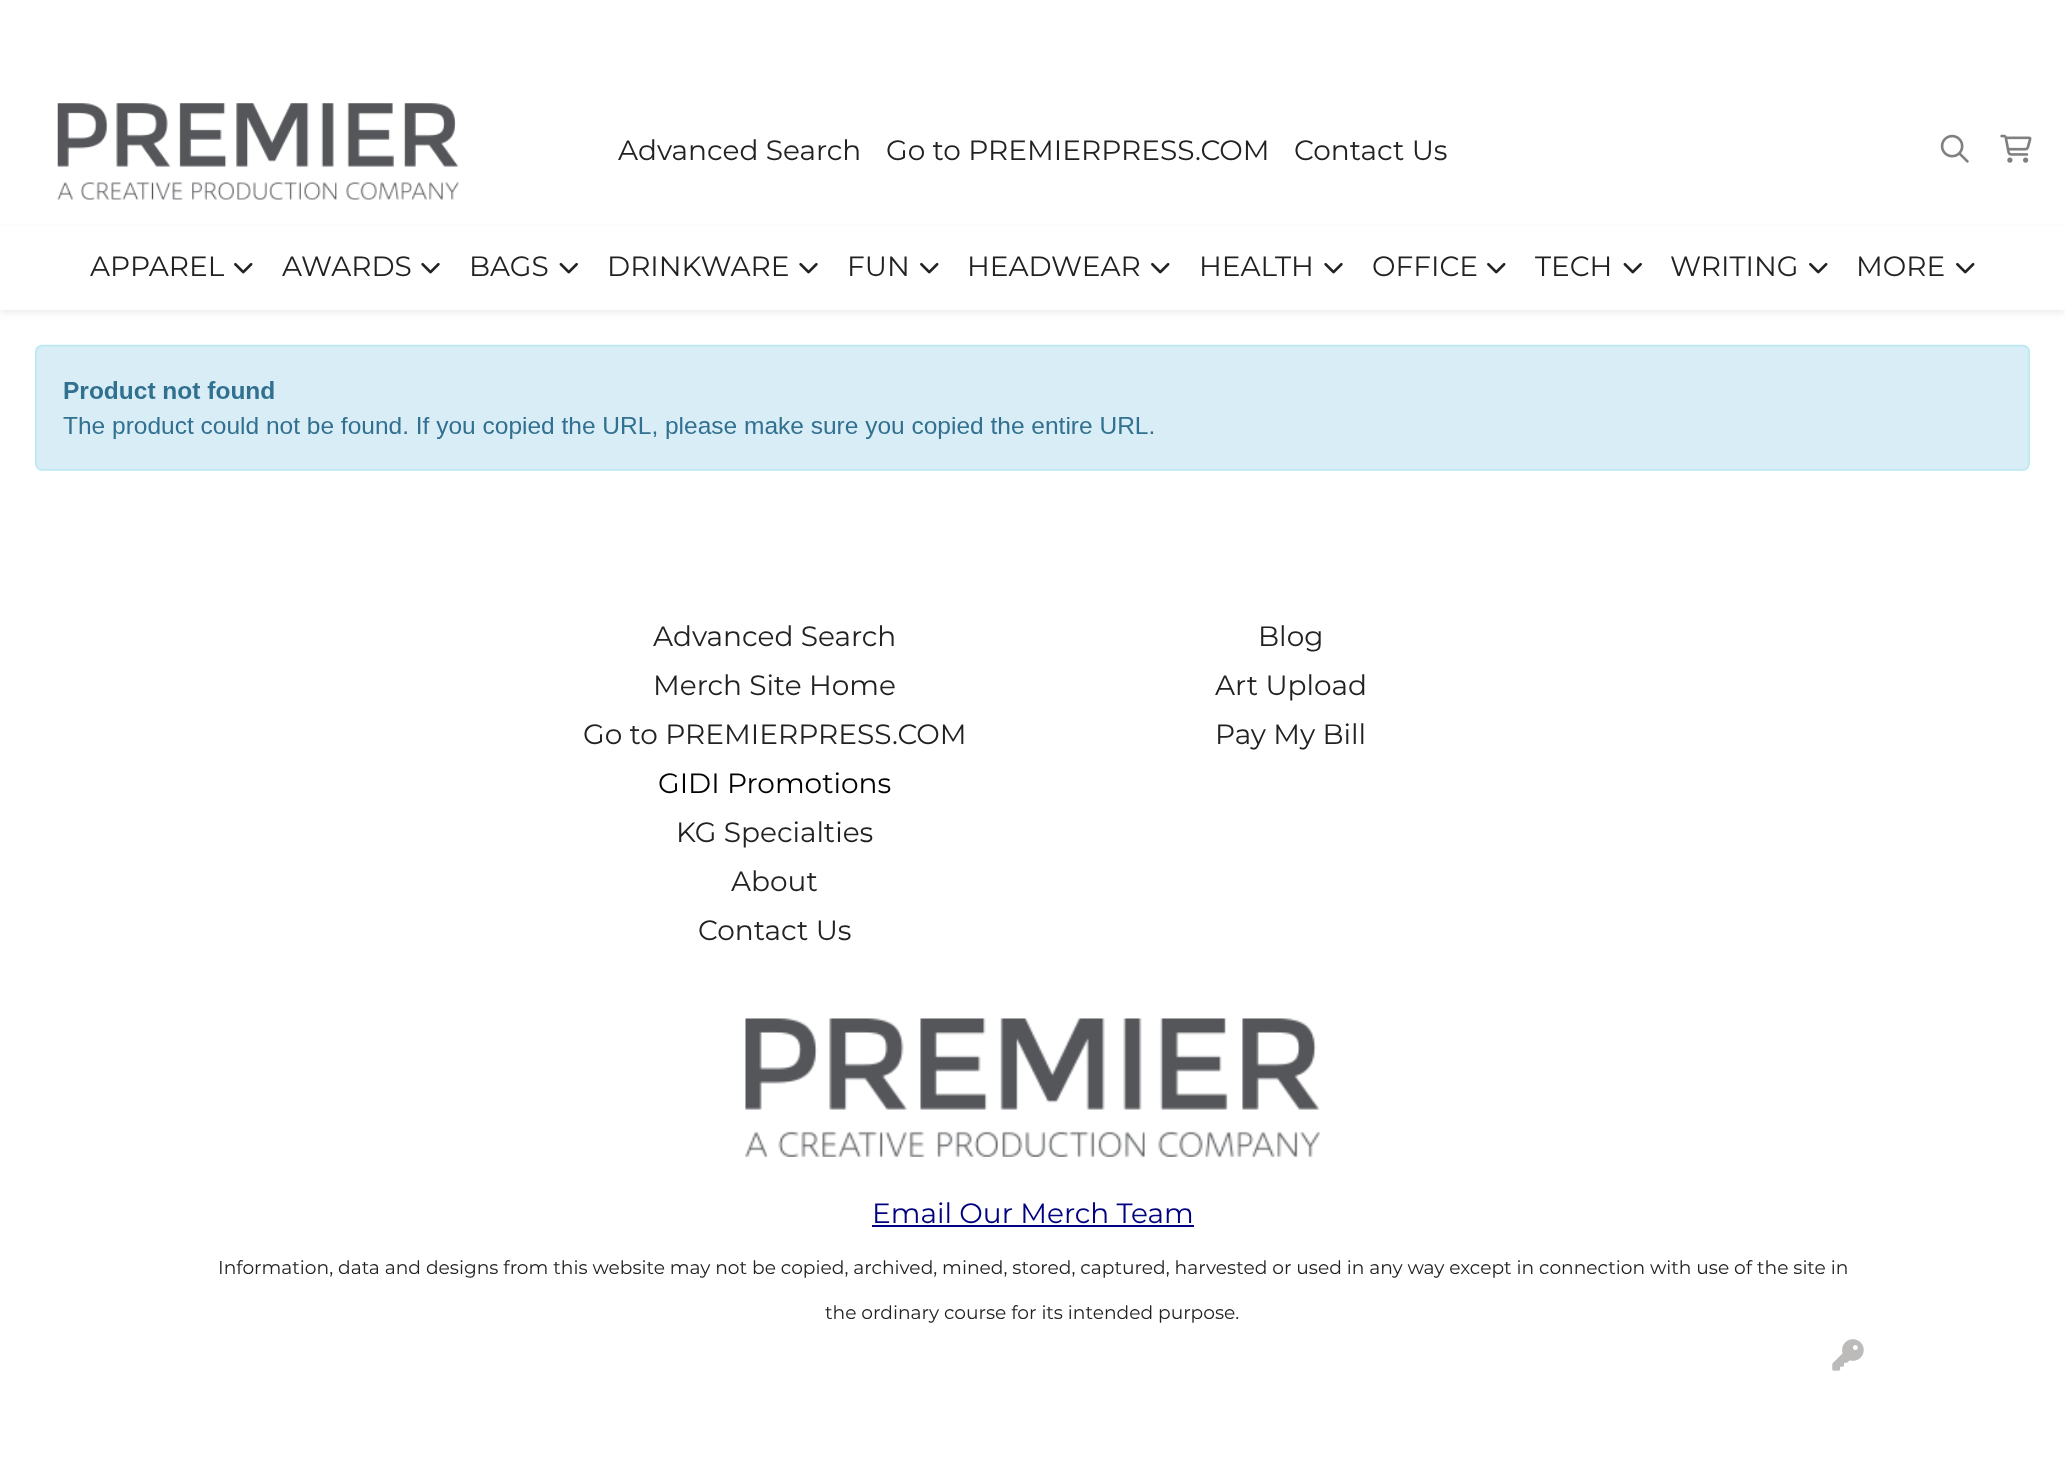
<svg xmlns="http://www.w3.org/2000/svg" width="2065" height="1466">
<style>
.a{font:100 28px Montserrat;fill:#222}
.b{font:100 28px Montserrat;fill:#000}
.c{font:100 28px Montserrat;fill:#000080}
.d{font:100 18.67px Montserrat;fill:#222}
</style>
<rect width="100%" height="100%" fill="#fff"/>
<image href="1.png" x="57" y="103" width="402" height="97"/>
<image href="2.png" x="1940" y="134" width="29" height="29"/>
<image href="3.png" x="2000" y="134" width="32" height="29"/>
<path fill="#00000012" filter="blur(3.5px)" d="M0 229h2065v84H0z"/>
<path fill="#fff" d="M0 226h2065v84H0z"/>
<image href="4.png" x="234" y="262" width="19" height="12"/>
<image href="5.png" x="421" y="262" width="19" height="12"/>
<image href="6.png" x="559" y="262" width="19" height="12"/>
<image href="5.png" x="799" y="262" width="19" height="12"/>
<image href="4.png" x="920" y="262" width="19" height="12"/>
<image href="4.png" x="1151" y="262" width="19" height="12"/>
<image href="5.png" x="1324" y="262" width="19" height="12"/>
<image href="4.png" x="1487" y="262" width="19" height="12"/>
<image href="6.png" x="1623" y="262" width="19" height="12"/>
<image href="4.png" x="1809" y="262" width="19" height="12"/>
<image href="4.png" x="1956" y="262" width="19" height="12"/>
<image href="7.png" x="35" y="344" width="1995" height="127"/>
<image href="8.png" x="745" y="1018" width="575" height="139"/>
<path fill="#000080" d="M872 1225h322v2H872z"/>
<image href="9.png" x="1832" y="1339" width="32" height="32"/>
<text class="a" x="618" y="160">Advanced Search</text>
<text class="a" x="886" y="160">Go to PREMIERPRESS.COM</text>
<text class="a" x="1294" y="160">Contact Us</text>
<text class="a" x="90" y="276">APPAREL</text>
<text class="a" x="282" y="276">AWARDS</text>
<text class="a" x="469" y="276">BAGS</text>
<text class="a" x="607" y="276">DRINKWARE</text>
<text class="a" x="847" y="276">FUN</text>
<text class="a" x="967" y="276">HEADWEAR</text>
<text class="a" x="1199" y="276">HEALTH</text>
<text class="a" x="1372" y="276">OFFICE</text>
<text class="a" x="1535" y="276">TECH</text>
<text class="a" x="1670" y="276">WRITING</text>
<text class="a" x="1856" y="276">MORE</text>
<text class="a" x="653" y="646">Advanced Search</text>
<text class="a" x="653" y="695">Merch Site Home</text>
<text class="a" x="583" y="744">Go to PREMIERPRESS.COM</text>
<text class="b" x="658" y="793">GIDI Promotions</text>
<text class="a" x="676" y="842">KG Specialties</text>
<text class="a" x="731" y="891">About</text>
<text class="a" x="698" y="940">Contact Us</text>
<text class="a" x="1258" y="646">Blog</text>
<text class="a" x="1215" y="695">Art Upload</text>
<text class="a" x="1215" y="744">Pay My Bill</text>
<text class="c" x="872" y="1223">Email Our Merch Team</text>
<text class="d" x="218" y="1274">Information, data and designs from this website may not be copied, archived, mined, stored, captured, harvested or used in any way except in connection with use of the site in</text>
<text class="d" x="825" y="1319">the ordinary course for its intended purpose.</text>
</svg>
